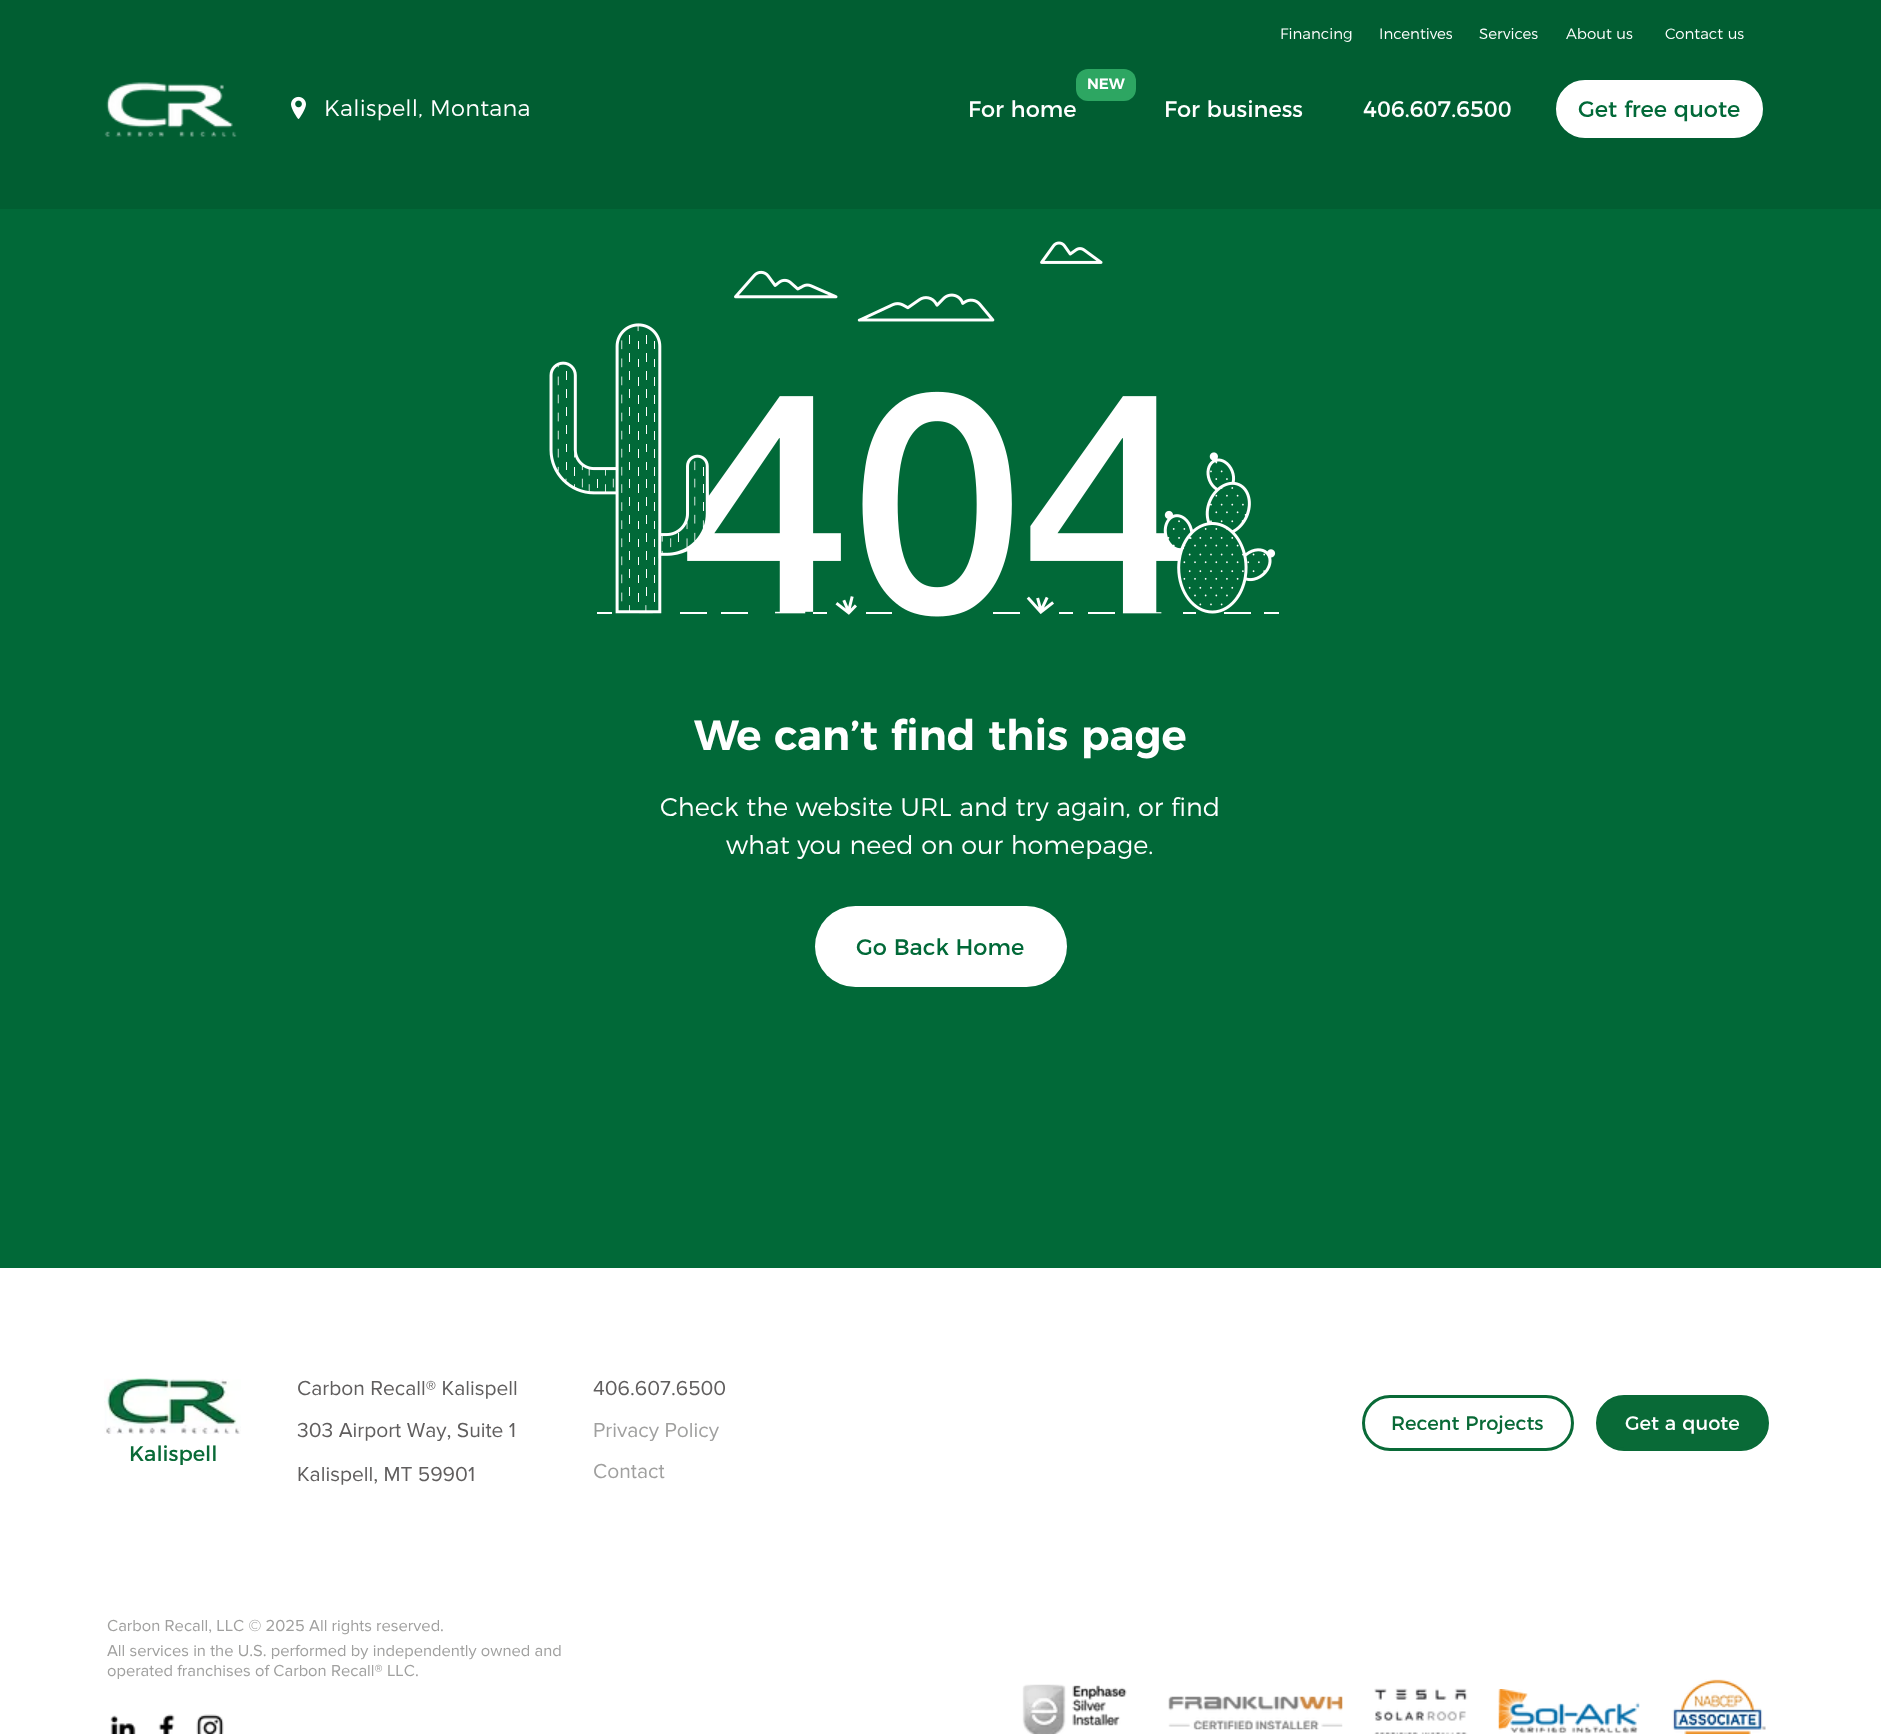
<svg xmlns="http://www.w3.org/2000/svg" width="1881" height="1734">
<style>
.a{font:300 15px Montserrat;fill:#fff}
.b{font:300 22.5px Montserrat;letter-spacing:0.25px;fill:#fff}
.c{font:600 15px Montserrat;fill:#fff}
.d{font:22.5px Montserrat;fill:#fff}
.e{font:22.5px Montserrat;fill:#016938}
.f{font:600 42px Montserrat;fill:#fff}
.g{font:300 25.5px Montserrat;fill:#fff}
.h{font:21px 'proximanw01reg';fill:#605e5e}
.i{font:21px 'proximanw01reg';fill:#a0a09f}
.j{font:21px Montserrat;fill:#096a37}
.k{font:16.5px 'proximanw01reg';fill:#a0a09f}
.l{font:19.5px Montserrat;fill:#096a37}
.m{font:19.5px Montserrat;fill:#fff}
</style>
<rect width="100%" height="100%" fill="#016938"/>
<path fill="#015e32" d="M0 0h1881v209H0z"/>
<image href="1.png" x="104" y="82" width="133" height="55"/>
<image href="2.png" x="291" y="96" width="15" height="23"/>
<rect fill="#2da662" x="1076" y="69" width="60" height="32" rx="12"/>
<rect fill="#fff" stroke="#fff" stroke-width="2" x="1557" y="81" width="205" height="56" rx="28"/>
<image href="3.png" x="549" y="241" width="730" height="376"/>
<rect fill="#fff" x="815" y="906" width="252" height="81" rx="40.5"/>
<path fill="#fff" d="M0 1268h1881v466H0z"/>
<image href="4.png" x="104" y="1378" width="137" height="56"/>
<image href="5.png" x="110" y="1715" width="26" height="19"/>
<image href="6.png" x="158" y="1714" width="17" height="20"/>
<image href="7.png" x="196" y="1714" width="28" height="20"/>
<rect fill="none" stroke="#096a37" stroke-width="3" x="1363.5" y="1396.5" width="209" height="53" rx="26.5"/>
<rect fill="#096a37" stroke="#096a37" stroke-width="3" x="1597.5" y="1396.5" width="170" height="53" rx="26.5"/>
<image href="8.png" x="1022" y="1684" width="105" height="50"/>
<image href="9.png" x="1168" y="1696" width="175" height="34"/>
<image href="10.png" x="1374" y="1688" width="94" height="46"/>
<image href="11.png" x="1498" y="1689" width="142" height="45"/>
<image href="12.png" x="1672" y="1679" width="94" height="55"/>
<text class="a" x="1280" y="39">Financing</text>
<text class="a" x="1379" y="39">Incentives</text>
<text class="a" x="1479" y="39">Services</text>
<text class="a" x="1566" y="39">About us</text>
<text class="a" x="1665" y="39">Contact us</text>
<text class="b" x="324" y="116">Kalispell, Montana</text>
<text class="c" x="1087" y="89">NEW</text>
<text class="d" x="968" y="117">For home</text>
<text class="d" x="1164" y="117">For business</text>
<text class="d" x="1363" y="117">406.607.6500</text>
<text class="e" x="1578" y="117">Get free quote</text>
<text class="f" x="694" y="750">We can’t find this page</text>
<text class="g" x="660" y="816">Check the website URL and try again, or find</text>
<text class="g" x="726" y="854">what you need on our homepage.</text>
<text class="e" x="856" y="955">Go Back Home</text>
<text class="h" x="297" y="1395">Carbon Recall® Kalispell</text>
<text class="h" x="593" y="1395">406.607.6500</text>
<text class="h" x="297" y="1437">303 Airport Way, Suite 1</text>
<text class="h" x="297" y="1481">Kalispell, MT 59901</text>
<text class="i" x="593" y="1437">Privacy Policy</text>
<text class="j" x="129" y="1461">Kalispell</text>
<text class="i" x="593" y="1478">Contact</text>
<text class="k" x="107" y="1631">Carbon Recall, LLC © 2025 All rights reserved.</text>
<text class="k" x="107" y="1656">All services in the U.S. performed by independently owned and</text>
<text class="k" x="107" y="1676">operated franchises of Carbon Recall® LLC.</text>
<text class="l" x="1391" y="1430">Recent Projects</text>
<text class="m" x="1625" y="1430">Get a quote</text>
</svg>
